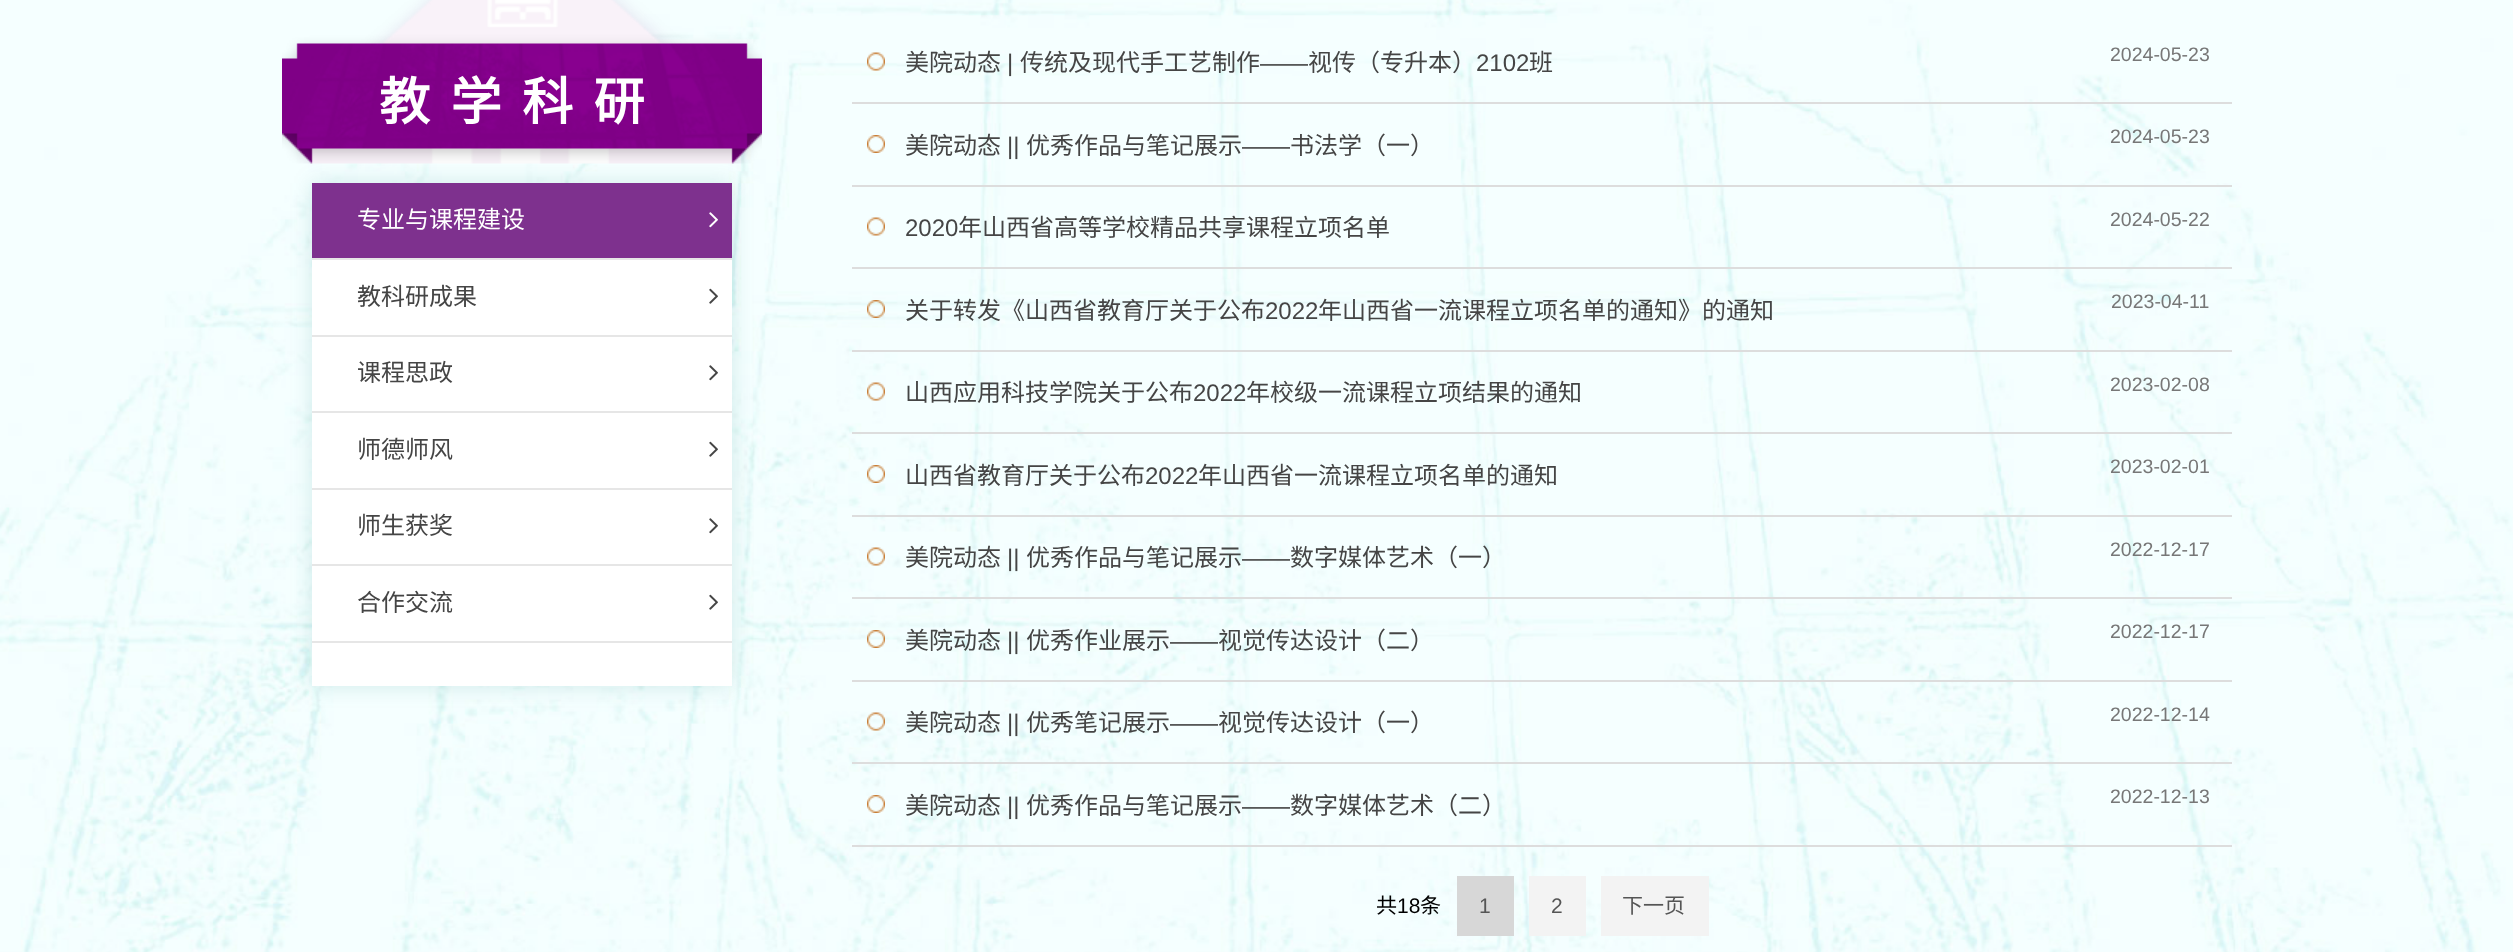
<svg xmlns="http://www.w3.org/2000/svg" width="2513" height="952">
<style>
.a{font:bold 51px Noto Sans CJK SC;letter-spacing:20.5px;fill:#fff}
.b{font:24px Noto Sans CJK SC;fill:#fff}
.c{font:24px Noto Sans CJK SC;fill:#454545}
.d{font:24px Liberation Sans;fill:#454545}
.e{font:19.5px Liberation Sans;fill:#777}
.f{font:21px Noto Sans CJK SC;fill:#000}
.g{font:21px Liberation Sans;fill:#000}
.h{font:21px Liberation Sans;fill:#555}
.i{font:21px Noto Sans CJK SC;fill:#555}
</style>
<rect width="100%" height="100%" fill="#fff"/>
<image href="1.png" x="0" y="0" width="2513" height="952"/>
<path fill="#00716b26" filter="blur(11px)" d="M312 183h420v503H312z"/>
<image href="2.png" x="282" y="0" width="480" height="164"/>
<path fill="#fff" d="M312 260h420v426H312z"/>
<path fill="#7e318e" d="M312 183h420v75H312z"/>
<path fill="#e6e6e6" d="M312 258h420v2H312z"/>
<image href="3.png" x="709" y="212" width="9" height="16"/>
<path fill="#e6e6e6" d="M312 335h420v2H312z"/>
<image href="4.png" x="709" y="288" width="9" height="16"/>
<path fill="#e6e6e6" d="M312 411h420v2H312z"/>
<image href="5.png" x="709" y="365" width="9" height="16"/>
<path fill="#e6e6e6" d="M312 488h420v2H312z"/>
<image href="4.png" x="709" y="441" width="9" height="16"/>
<path fill="#e6e6e6" d="M312 564h420v2H312z"/>
<image href="5.png" x="709" y="518" width="9" height="16"/>
<path fill="#e6e6e6" d="M312 641h420v2H312z"/>
<image href="4.png" x="709" y="594" width="9" height="16"/>
<image href="6.png" x="867" y="52" width="18" height="19"/>
<path fill="#ddd" d="M852 102h1380v2H852z"/>
<image href="7.png" x="867" y="135" width="18" height="18"/>
<path fill="#ddd" d="M852 185h1380v2H852z"/>
<image href="8.png" x="867" y="217" width="18" height="19"/>
<path fill="#ddd" d="M852 267h1380v2H852z"/>
<image href="9.png" x="867" y="300" width="18" height="18"/>
<path fill="#ddd" d="M852 350h1380v2H852z"/>
<image href="10.png" x="867" y="382" width="18" height="19"/>
<path fill="#ddd" d="M852 432h1380v2H852z"/>
<image href="11.png" x="867" y="465" width="18" height="18"/>
<path fill="#ddd" d="M852 515h1380v2H852z"/>
<image href="12.png" x="867" y="547" width="18" height="19"/>
<path fill="#ddd" d="M852 597h1380v2H852z"/>
<image href="13.png" x="867" y="630" width="18" height="18"/>
<path fill="#ddd" d="M852 680h1380v2H852z"/>
<image href="14.png" x="867" y="712" width="18" height="19"/>
<path fill="#ddd" d="M852 762h1380v2H852z"/>
<image href="15.png" x="867" y="795" width="18" height="18"/>
<path fill="#ddd" d="M852 845h1380v2H852z"/>
<path fill="#d7d7d7" d="M1457 876h57v60H1457z"/>
<path fill="#f3f3f3" d="M1529 876h57v60H1529z"/>
<path fill="#f3f3f3" d="M1601 876h108v60H1601z"/>
<text class="a" x="379" y="120">教学科研</text>
<text class="b" x="357" y="228">专业与课程建设</text>
<text class="c" x="357" y="305">教科研成果</text>
<text class="c" x="357" y="381">课程思政</text>
<text class="c" x="357" y="458">师德师风</text>
<text class="c" x="357" y="534">师生获奖</text>
<text class="c" x="357" y="611">合作‍交流</text>
<text class="c" x="905" y="71">美院动态</text>
<text class="d" x="1007" y="71">|</text>
<text class="c" x="1020" y="71">传统及现代手工艺制作</text>
<text class="d" x="1260" y="71">——</text>
<text class="c" x="1308" y="71">视传（专升本）</text>
<text class="d" x="1476" y="71">2102</text>
<text class="c" x="1529" y="71">班</text>
<text class="e" x="2110" y="61">2024-05-23</text>
<text class="c" x="905" y="154">美院动态</text>
<text class="d" x="1007" y="154">||</text>
<text class="c" x="1026" y="154">优秀作品与笔记展示</text>
<text class="d" x="1242" y="154">——</text>
<text class="c" x="1290" y="154">书法学（一）</text>
<text class="e" x="2110" y="143">2024-05-23</text>
<text class="d" x="905" y="236">2020</text>
<text class="c" x="958" y="236">年山西省高等学校精品共享课程立项名单</text>
<text class="e" x="2110" y="226">2024-05-22</text>
<text class="c" x="905" y="319">关于转发《山西省教育厅关于公布</text>
<text class="d" x="1265" y="319">2022</text>
<text class="c" x="1318" y="319">年山西省一流课程立项名单的通知》的通知</text>
<text class="e" x="2111" y="308">2023-04-11</text>
<text class="c" x="905" y="401">山西应用科技学院关于公布</text>
<text class="d" x="1193" y="401">2022</text>
<text class="c" x="1246" y="401">年校级一流课程立项结果的通知</text>
<text class="e" x="2110" y="391">2023-02-08</text>
<text class="c" x="905" y="484">山西省教育厅关于公布</text>
<text class="d" x="1145" y="484">2022</text>
<text class="c" x="1198" y="484">年山西省一流课程立项名单的通知</text>
<text class="e" x="2110" y="473">2023-02-01</text>
<text class="c" x="905" y="566">美院动态</text>
<text class="d" x="1007" y="566">||</text>
<text class="c" x="1026" y="566">优秀作品与笔记展示</text>
<text class="d" x="1242" y="566">——</text>
<text class="c" x="1290" y="566">数字媒体艺术（一）</text>
<text class="e" x="2110" y="556">2022-12-17</text>
<text class="c" x="905" y="649">美院动态</text>
<text class="d" x="1007" y="649">||</text>
<text class="c" x="1026" y="649">优秀作业展示</text>
<text class="d" x="1170" y="649">——</text>
<text class="c" x="1218" y="649">视觉传达设计（二）</text>
<text class="e" x="2110" y="638">2022-12-17</text>
<text class="c" x="905" y="731">美院动态</text>
<text class="d" x="1007" y="731">||</text>
<text class="c" x="1026" y="731">优秀笔记展示</text>
<text class="d" x="1170" y="731">——</text>
<text class="c" x="1218" y="731">视觉传达设计（一）</text>
<text class="e" x="2110" y="721">2022-12-14</text>
<text class="c" x="905" y="814">美院动态</text>
<text class="d" x="1007" y="814">||</text>
<text class="c" x="1026" y="814">优秀作品与笔记展示</text>
<text class="d" x="1242" y="814">——</text>
<text class="c" x="1290" y="814">数字媒体艺术（二）</text>
<text class="e" x="2110" y="803">2022-12-13</text>
<text class="f" x="1376" y="913">共</text>
<text class="g" x="1397" y="913">18</text>
<text class="f" x="1420" y="913">条</text>
<text class="h" x="1479" y="913">1</text>
<text class="h" x="1551" y="913">2</text>
<text class="i" x="1622" y="913">下一页</text>
</svg>
